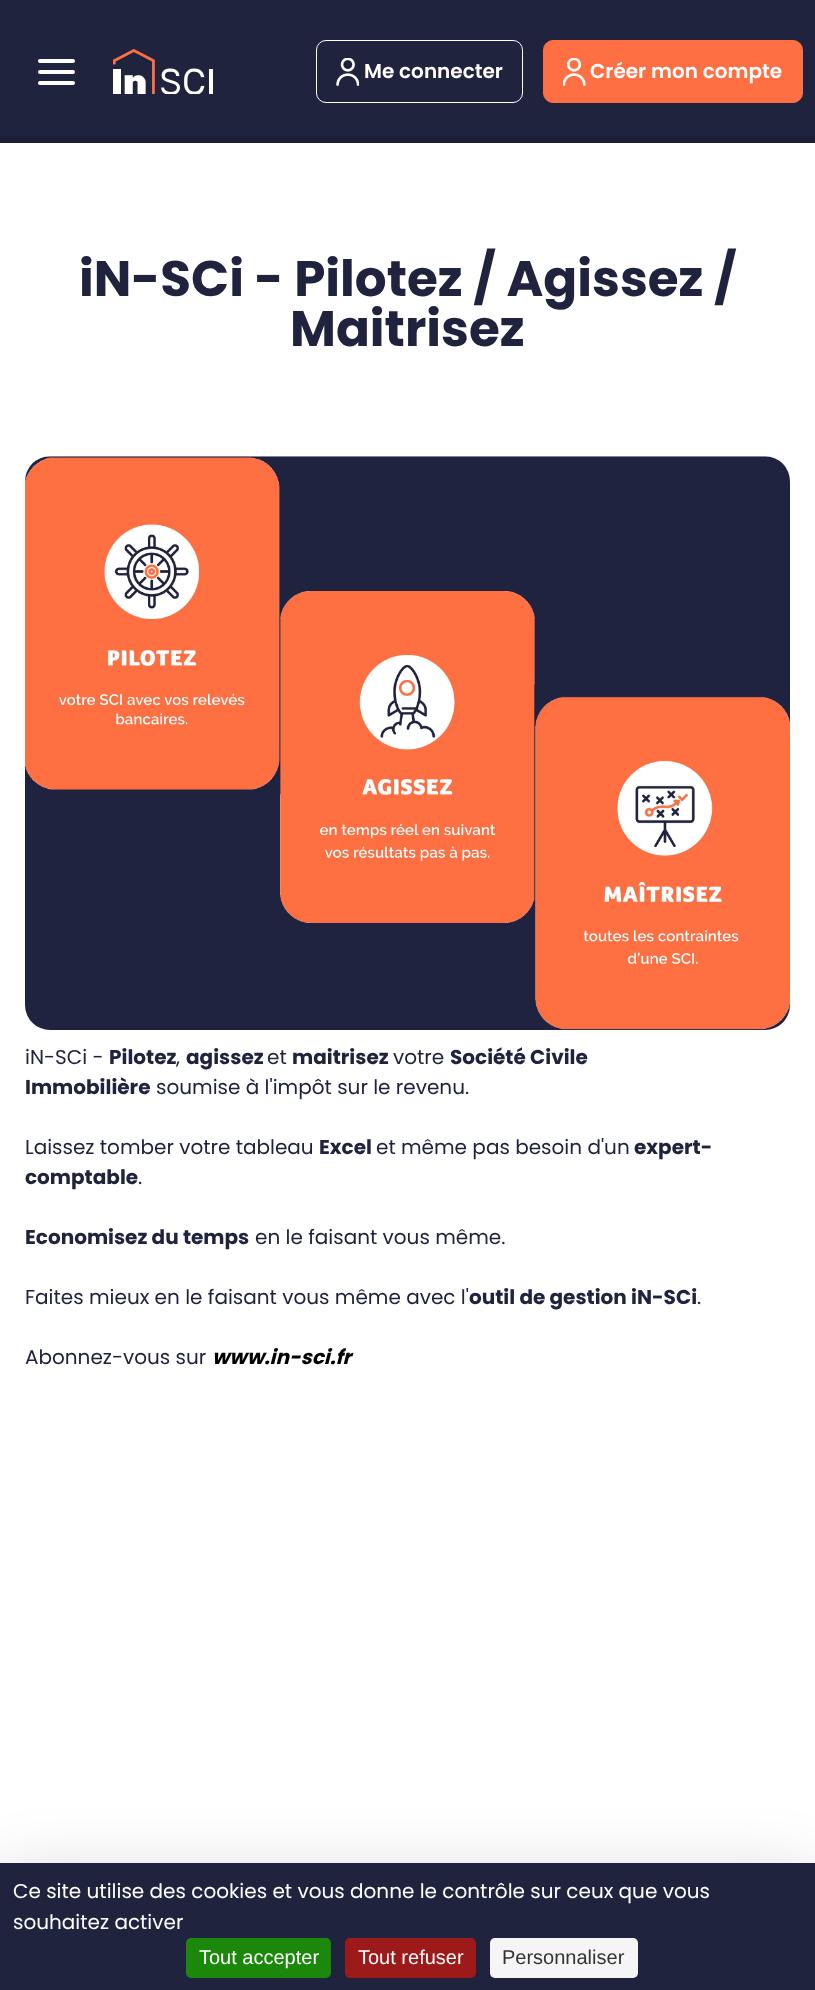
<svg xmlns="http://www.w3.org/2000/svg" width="815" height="1990">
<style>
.a{font:600 20px Poppins;fill:#fff}
.b{font:bold 50px Poppins;fill:#20233e}
.c{font:20px Poppins;fill:#20233e}
.d{font:bold 20px Poppins;fill:#20233e}
.e{font:italic bold 20px Poppins;fill:#000}
.f{font:20px Poppins;fill:#fff}
.g{font:20px Liberation Sans;fill:#fff}
.h{font:20px Liberation Sans;fill:#333}
</style>
<rect width="100%" height="100%" fill="#fff"/>
<path fill="#20233e" d="M0 0h815v136H0z"/>
<rect fill="#fff" x="38" y="70" width="37" height="4" rx="2"/>
<rect fill="#fff" x="38" y="59" width="37" height="4" rx="2"/>
<rect fill="#fff" x="38" y="81" width="37" height="4" rx="2"/>
<image href="1.png" x="113" y="49" width="100" height="45"/>
<rect fill="none" stroke="#fff" x="316.5" y="40.5" width="206" height="62" rx="9.5"/>
<image href="2.png" x="336" y="58" width="23" height="28"/>
<rect fill="#fe6f43" stroke="#fe6f43" x="543.5" y="40.5" width="259" height="62" rx="9.5"/>
<image href="3.png" x="563" y="58" width="23" height="28"/>
<path fill="#1b1e35" d="M0 136h815v7H0z"/>
<image href="4.png" x="25" y="456" width="765" height="574"/>
<path fill="#00000040" filter="blur(37.5px)" d="M0 1888h815v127H0z"/>
<path fill="#20233e" d="M0 1863h815v127H0z"/>
<rect fill="#1b870b" x="186" y="1938" width="145" height="40" rx="5"/>
<rect fill="#9c1a1a" x="345" y="1938" width="131" height="40" rx="5"/>
<rect fill="#f5f5f5" x="490" y="1938" width="148" height="40" rx="5"/>
<text class="a" x="364" y="78">Me connecter</text>
<text class="a" x="590" y="78">Créer mon compte</text>
<text class="b" x="79" y="296">iN-SCi - Pilotez / Agissez /</text>
<text class="b" x="290" y="346">Maitrisez</text>
<text class="c" x="25" y="1064">iN-SCi -</text>
<text class="d" x="109" y="1064">Pilotez</text>
<text class="c" x="176" y="1064">,</text>
<text class="d" x="186" y="1064">agissez</text>
<text class="c" x="267" y="1064">et</text>
<text class="d" x="292" y="1064">maitrisez</text>
<text class="c" x="393" y="1064">votre</text>
<text class="d" x="450" y="1064">Société Civile</text>
<text class="d" x="25" y="1094">Immobilière</text>
<text class="c" x="156" y="1094">soumise à l'impôt sur le revenu.</text>
<text class="c" x="25" y="1154">Laissez tomber votre tableau</text>
<text class="d" x="319" y="1154">Excel</text>
<text class="c" x="376" y="1154">et même pas besoin d'un</text>
<text class="d" x="634" y="1154">expert-</text>
<text class="d" x="25" y="1184">comptable</text>
<text class="c" x="138" y="1184">.</text>
<text class="d" x="25" y="1244">Economisez du temps</text>
<text class="c" x="255" y="1244">en le faisant vous même.</text>
<text class="c" x="25" y="1304">Faites mieux en le faisant vous même avec l'</text>
<text class="d" x="469" y="1304">outil de gestion iN-SCi</text>
<text class="c" x="697" y="1304">.</text>
<text class="c" x="25" y="1364">Abonnez-vous sur</text>
<text class="e" x="212" y="1364">www.in-sci.fr</text>
<text class="f" x="13" y="1898">Ce site utilise des cookies et vous donne le contrôle sur ceux que vous</text>
<text class="f" x="13" y="1929">souhaitez activer</text>
<text class="g" x="199" y="1964">Tout accepter</text>
<text class="g" x="358" y="1964">Tout refuser</text>
<text class="h" x="502" y="1964">Personnaliser</text>
</svg>
